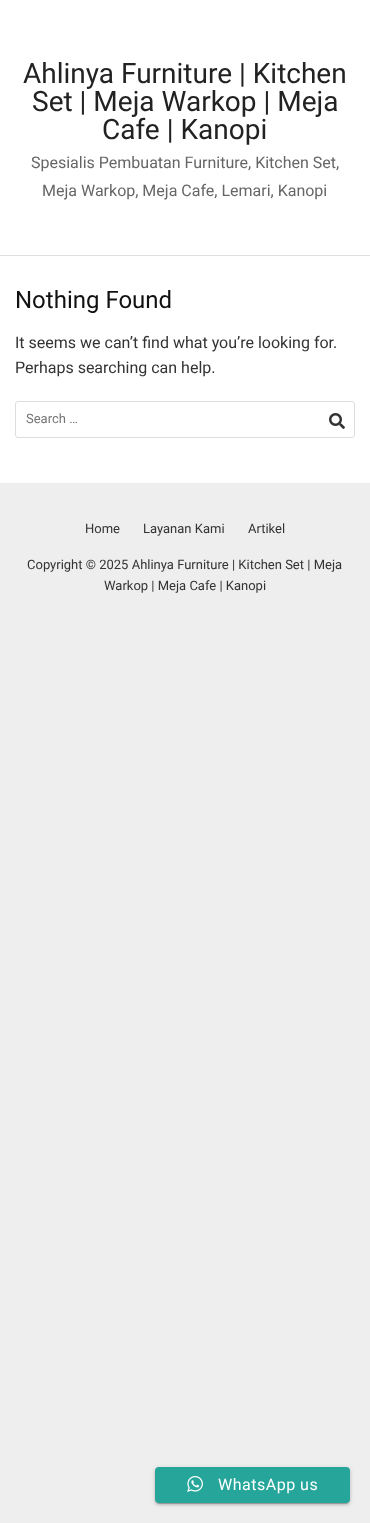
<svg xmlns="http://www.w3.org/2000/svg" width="370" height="1523">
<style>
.a{font:28px Roboto;fill:#222}
.b{font:16px Roboto;fill:#666}
.c{font:24px Roboto;fill:#111}
.d{font:16px Roboto;fill:#333}
.e{font:13px Roboto;fill:#757575}
.f{font:13px Roboto;fill:#333}
.g{font:16px Roboto;letter-spacing:0.5px;fill:#fff}
</style>
<rect width="100%" height="100%" fill="#eee"/>
<path fill="#fff" d="M0 0h370v255H0z"/>
<path fill="#dfdfdf" d="M0 255h370v1H0z"/>
<path fill="#fff" d="M0 256h370v227H0z"/>
<rect fill="none" stroke="#ddd" x="15.5" y="401.5" width="339" height="36" rx="2.5"/>
<image href="1.png" x="329" y="413" width="16" height="16"/>
<rect fill="#00000033" filter="blur(0.5px)" x="157" y="1472" width="191" height="32" rx="2"/>
<rect fill="#0000001f" filter="blur(2.5px)" x="155" y="1468" width="195" height="36" rx="4"/>
<rect fill="#00000024" filter="blur(1px)" x="155" y="1469" width="195" height="36" rx="4"/>
<rect fill="#26a69a" x="155" y="1467" width="195" height="36" rx="4"/>
<image href="2.png" x="187" y="1476" width="16" height="16"/>
<text class="a" x="23" y="83">Ahlinya Furniture | Kitchen</text>
<text class="a" x="32" y="111">Set | Meja Warkop | Meja</text>
<text class="a" x="102" y="139">Cafe | Kanopi</text>
<text class="b" x="31" y="168">Spesialis Pembuatan Furniture, Kitchen Set,</text>
<text class="b" x="42" y="196">Meja Warkop, Meja Cafe, Lemari, Kanopi</text>
<text class="c" x="15" y="308">Nothing Found</text>
<text class="d" x="15" y="348">It seems we can’t find what you’re looking for.</text>
<text class="d" x="15" y="373">Perhaps searching can help.</text>
<text class="e" x="26" y="423">Search …</text>
<text class="f" x="85" y="533">Home</text>
<text class="f" x="143" y="533">Layanan Kami</text>
<text class="f" x="248" y="533">Artikel</text>
<text class="f" x="27" y="569">Copyright © 2025 Ahlinya Furniture | Kitchen Set | Meja</text>
<text class="f" x="104" y="590">Warkop | Meja Cafe | Kanopi</text>
<text class="g" x="218" y="1490">WhatsApp us</text>
</svg>
